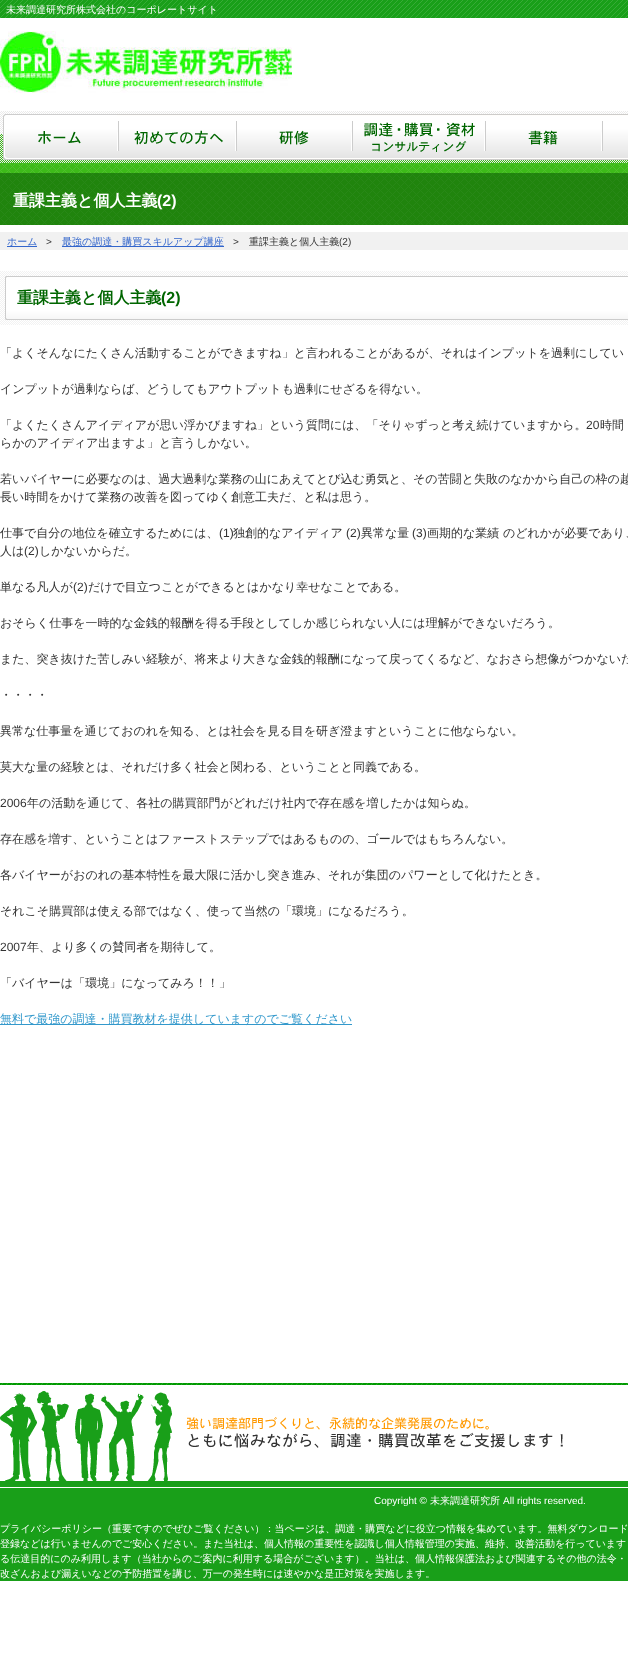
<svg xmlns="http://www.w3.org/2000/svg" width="628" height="1657">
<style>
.a{font:500 10px WenQuanYi Zen Hei;fill:#fff}
.b{font:bold 16px WenQuanYi Zen Hei;fill:#fff}
.c{font:bold 16px Liberation Sans;fill:#fff}
.d{font:500 10px WenQuanYi Zen Hei;fill:#36c}
.e{font:10px Liberation Sans;fill:#333}
.f{font:500 10px WenQuanYi Zen Hei;fill:#333}
.g{font:bold 16px WenQuanYi Zen Hei;fill:#060}
.h{font:bold 16px Liberation Sans;fill:#060}
.i{font:500 12px WenQuanYi Zen Hei;fill:#333}
.j{font:12px Liberation Sans;fill:#333}
.k{font:500 12px WenQuanYi Zen Hei;fill:#39c}
.l{font:10px Liberation Sans;fill:#fff}
</style>
<rect width="100%" height="100%" fill="#fff"/>
<image href="1.png" x="0" y="0" width="628" height="18"/>
<image href="2.png" x="0" y="31" width="292" height="62"/>
<image href="3.png" x="0" y="134" width="628" height="39"/>
<image href="4.png" x="0" y="111" width="628" height="52"/>
<image href="5.png" x="3" y="114" width="114" height="46"/>
<image href="6.png" x="117" y="114" width="118" height="46"/>
<image href="7.png" x="117" y="116" width="118" height="42"/>
<image href="8.png" x="235" y="114" width="116" height="46"/>
<image href="9.png" x="235" y="116" width="116" height="42"/>
<image href="10.png" x="351" y="114" width="133" height="46"/>
<image href="11.png" x="351" y="116" width="133" height="42"/>
<image href="12.png" x="484" y="114" width="117" height="46"/>
<image href="13.png" x="484" y="116" width="117" height="42"/>
<image href="14.png" x="601" y="114" width="27" height="46"/>
<image href="15.png" x="601" y="116" width="27" height="42"/>
<image href="16.png" x="0" y="173" width="628" height="52"/>
<path fill="#f1f1f1" d="M0 232h628v18H0z"/>
<path fill="#36c" d="M7 246h30v1H7z"/>
<path fill="#36c" d="M62 246h162v1H62z"/>
<image href="17.png" x="0" y="271" width="628" height="54"/>
<path fill="#39c" d="M0 1024h352v1H0z"/>
<path fill="#199f19" d="M0 1488h628v93H0z"/>
<image href="18.png" x="0" y="1364" width="628" height="124"/>
<image href="19.png" x="0" y="1391" width="563" height="90"/>
<text class="a" x="6" y="13">未来調達研究所株式会社のコーポレートサイト</text>
<text class="b" x="13" y="206">重課主義と個人主義</text>
<text class="c" x="157" y="206">(2)</text>
<text class="d" x="7" y="245">ホーム</text>
<text class="e" x="46" y="245">&gt;</text>
<text class="d" x="62" y="245">最強の調達・購買スキルアップ講座</text>
<text class="e" x="233" y="245">&gt;</text>
<text class="f" x="249" y="245">重課主義と個人主義</text>
<text class="e" x="339" y="245">(2)</text>
<text class="g" x="17" y="303">重課主義と個人主義</text>
<text class="h" x="161" y="303">(2)</text>
<text class="i" x="0" y="357">「よくそんなにたくさん活動することができますね」と言われることがあるが、それはインプットを過剰にしてい</text>
<text class="i" x="0" y="393">インプットが過剰ならば、どうしてもアウトプットも過剰にせざるを得ない。</text>
<text class="i" x="0" y="429">「よくたくさんアイディアが思い浮かびますね」という質問には、「そりゃずっと考え続けていますから。</text>
<text class="j" x="586" y="429">20</text>
<text class="i" x="600" y="429">時間</text>
<text class="i" x="0" y="447">らかのアイディア出ますよ」と言うしかない。</text>
<text class="i" x="0" y="483">若いバイヤーに必要なのは、過大過剰な業務の山にあえてとび込む勇気と、その苦闘と失敗のなかから自己の枠の越</text>
<text class="i" x="0" y="501">長い時間をかけて業務の改善を図ってゆく創意工夫だ、と私は思う。</text>
<text class="i" x="0" y="537">仕事で自分の地位を確立するためには、</text>
<text class="j" x="219" y="537">(1)</text>
<text class="i" x="233" y="537">独創的なアイディア</text>
<text class="j" x="346" y="537">(2)</text>
<text class="i" x="361" y="537">異常な量</text>
<text class="j" x="412" y="537">(3)</text>
<text class="i" x="427" y="537">画期的な業績 のどれかが必要であり、</text>
<text class="i" x="0" y="555">人は</text>
<text class="j" x="24" y="555">(2)</text>
<text class="i" x="39" y="555">しかないからだ。</text>
<text class="i" x="0" y="591">単なる凡人が</text>
<text class="j" x="73" y="591">(2)</text>
<text class="i" x="88" y="591">だけで目立つことができるとはかなり幸せなことである。</text>
<text class="i" x="0" y="627">おそらく仕事を一時的な金銭的報酬を得る手段としてしか感じられない人には理解ができないだろう。</text>
<text class="i" x="0" y="663">また、突き抜けた苦しみい経験が、将来より大きな金銭的報酬になって戻ってくるなど、なおさら想像がつかないだ</text>
<text class="i" x="0" y="699">・・・・</text>
<text class="i" x="0" y="735">異常な仕事量を通じておのれを知る、とは社会を見る目を研ぎ澄ますということに他ならない。</text>
<text class="i" x="0" y="771">莫大な量の経験とは、それだけ多く社会と関わる、ということと同義である。</text>
<text class="j" x="0" y="807">2006</text>
<text class="i" x="27" y="807">年の活動を通じて、各社の購買部門がどれだけ社内で存在感を増したかは知らぬ。</text>
<text class="i" x="0" y="843">存在感を増す、ということはファーストステップではあるものの、ゴールではもちろんない。</text>
<text class="i" x="0" y="879">各バイヤーがおのれの基本特性を最大限に活かし突き進み、それが集団のパワーとして化けたとき。</text>
<text class="i" x="0" y="915">それこそ購買部は使える部ではなく、使って当然の「環境」になるだろう。</text>
<text class="j" x="0" y="951">2007</text>
<text class="i" x="27" y="951">年、より多くの賛同者を期待して。</text>
<text class="i" x="0" y="987">「バイヤーは「環境」になってみろ！！」</text>
<text class="k" x="0" y="1023">無料で最強の調達・購買教材を提供していますのでご覧ください</text>
<text class="l" x="374" y="1504">Copyright ©</text>
<text class="a" x="430" y="1504">未来調達研究所</text>
<text class="l" x="503" y="1504">All rights reserved.</text>
<text class="a" x="0" y="1532">プライバシーポリシー（重要ですのでぜひご覧ください）：当ページは、調達・購買などに役立つ情報を集めています。無料ダウンロード</text>
<text class="a" x="0" y="1547">登録などは行いませんのでご安心ください。また当社は、個人情報の重要性を認識し個人情報管理の実施、維持、改善活動を行っています</text>
<text class="a" x="0" y="1562">る伝達目的にのみ利用します（当社からのご案内に利用する場合がございます）。当社は、個人情報保護法および関連するその他の法令・</text>
<text class="a" x="0" y="1577">改ざんおよび漏えいなどの予防措置を講じ、万一の発生時には速やかな是正対策を実施します。</text>
</svg>
